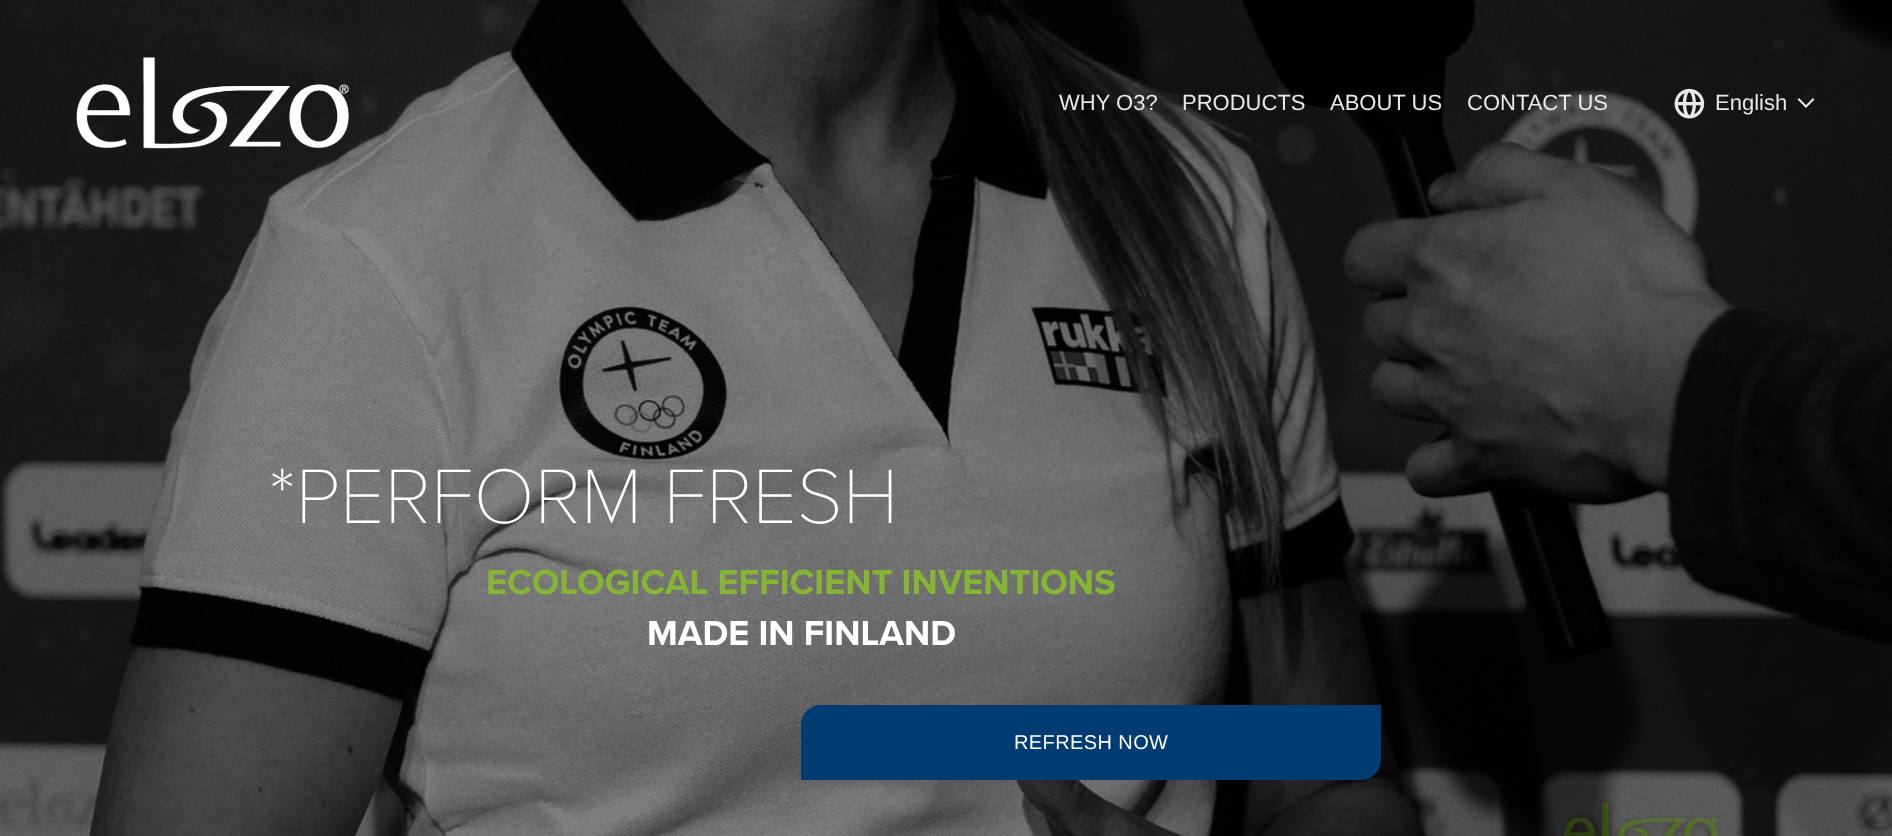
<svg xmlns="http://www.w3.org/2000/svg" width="1892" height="836">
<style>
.a{font:22px Liberation Sans;fill:#e8e8e8}
.b{font:100 80px Proxima Nova;fill:#fff}
.c{font:bold 36px Proxima Nova;fill:#86b536}
.d{font:bold 36px Proxima Nova;fill:#fff}
.e{font:20px Liberation Sans;letter-spacing:0.4px;fill:#fff}
</style>
<rect width="100%" height="100%" fill="#fff"/>
<image href="3.png" x="0" y="0" width="1892" height="836"/>
<image href="1.png" x="76" y="57" width="274" height="92"/>
<image href="2.png" x="1674" y="88" width="31" height="31"/>
<path fill="none" stroke="#ffffffe6" stroke-width="2" stroke-linecap="square" d="M1813 99.5l-7 7l-7-7"/>
<path fill="#003b71" d="M821 705h560v55c0 11-9 20-20 20h-560v-55c0-11 9-20 20-20z"/>
<text class="a" x="1059" y="110">WHY O3?</text>
<text class="a" x="1182" y="110">PRODUCTS</text>
<text class="a" x="1330" y="110">ABOUT US</text>
<text class="a" x="1467" y="110">CONTACT US</text>
<text class="a" x="1715" y="110">English</text>
<text class="b" x="269" y="523">*PERFORM FRESH</text>
<text class="c" x="486" y="594">ECOLOGICAL EFFICIENT INVENTIONS</text>
<text class="d" x="647" y="645">MADE IN FINLAND</text>
<text class="e" x="1014" y="749">REFRESH NOW</text>
</svg>
